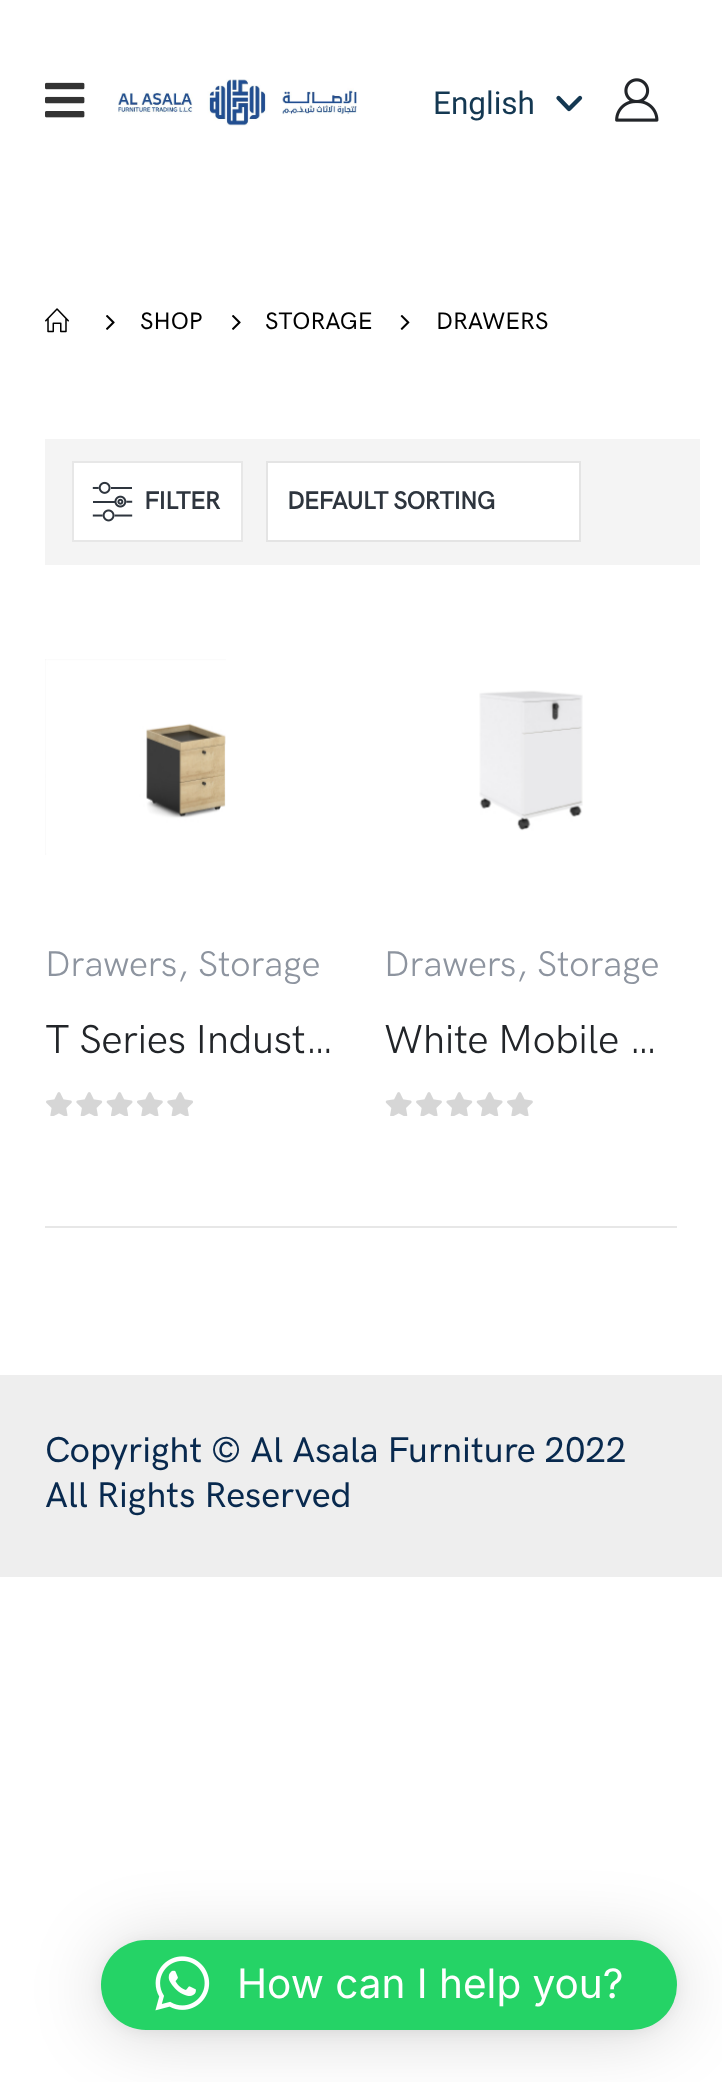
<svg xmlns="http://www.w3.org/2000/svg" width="722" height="2082">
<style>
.a{font:31.5px Roboto;fill:#143852}
.b{font:500 24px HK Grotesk;fill:#000}
.c{font:bold 24.75px HK Grotesk;letter-spacing:-0.6px;fill:#2e353e}
.d{font:36px HK Grotesk;fill:#8d949f}
.e{font:40.5px HK Grotesk;letter-spacing:-0.4px;fill:#222529}
.f{font:500 36px HK Grotesk;fill:#08294e}
.g{font:40.5px Inter;fill:#fff}
</style>
<rect width="100%" height="100%" fill="#fff"/>
<image href="1.png" x="45" y="82" width="40" height="36"/>
<image href="2.png" x="118" y="79" width="239" height="47"/>
<path fill="none" stroke="#143852" stroke-width="4.3" stroke-linecap="round" stroke-linejoin="round" d="M558.5 98l10.5 11l11-11"/>
<image href="3.png" x="615" y="78" width="44" height="44"/>
<image href="4.png" x="45" y="308" width="24" height="25"/>
<image href="5.png" x="106" y="315" width="9" height="15"/>
<image href="5.png" x="232" y="315" width="9" height="15"/>
<image href="6.png" x="400" y="315" width="10" height="15"/>
<path fill="#f4f4f4" d="M45 439h655v126H45z"/>
<path fill="#fff" stroke="#e7e7e7" stroke-width="2" d="M73 462h169v79H73z"/>
<image href="7.png" x="92" y="481" width="41" height="41"/>
<path fill="#fff" stroke="#e4e4e4" stroke-width="2" d="M267 462h313v79H267z"/>
<image href="8.png" x="45" y="659" width="181" height="196"/>
<image href="9.png" x="46" y="1092" width="147" height="24"/>
<image href="10.png" x="479" y="690" width="104" height="141"/>
<image href="11.png" x="385" y="1092" width="148" height="24"/>
<path fill="#e7e7e7" d="M45 1226h632v2H45z"/>
<path fill="#eee" d="M0 1375h722v202H0z"/>
<rect fill="#00000029" filter="blur(36px)" x="101" y="1944" width="576" height="90" rx="45"/>
<rect fill="#0000000f" filter="blur(7px)" x="101" y="1942" width="576" height="90" rx="45"/>
<rect fill="#25d366" x="101" y="1940" width="576" height="90" rx="45"/>
<image href="12.png" x="155" y="1956" width="55" height="55"/>
<text class="a" x="433" y="114">English</text>
<text class="b" x="140" y="329">SHOP</text>
<text class="b" x="265" y="329">STORAGE</text>
<text class="b" x="436" y="329">DRAWERS</text>
<text class="c" x="144" y="509">FILTER</text>
<text class="c" x="287" y="509">DEFAULT SORTING</text>
<text class="d" x="45" y="976">Drawers, Storage</text>
<text class="e" x="45" y="1053">T Series Indust…</text>
<text class="d" x="384" y="976">Drawers, Storage</text>
<text class="e" x="384" y="1053">White Mobile …</text>
<text class="f" x="45" y="1462">Copyright © Al Asala Furniture 2022</text>
<text class="f" x="45" y="1507">All Rights Reserved</text>
<text class="g" x="237" y="1998">How can I help you?</text>
</svg>
